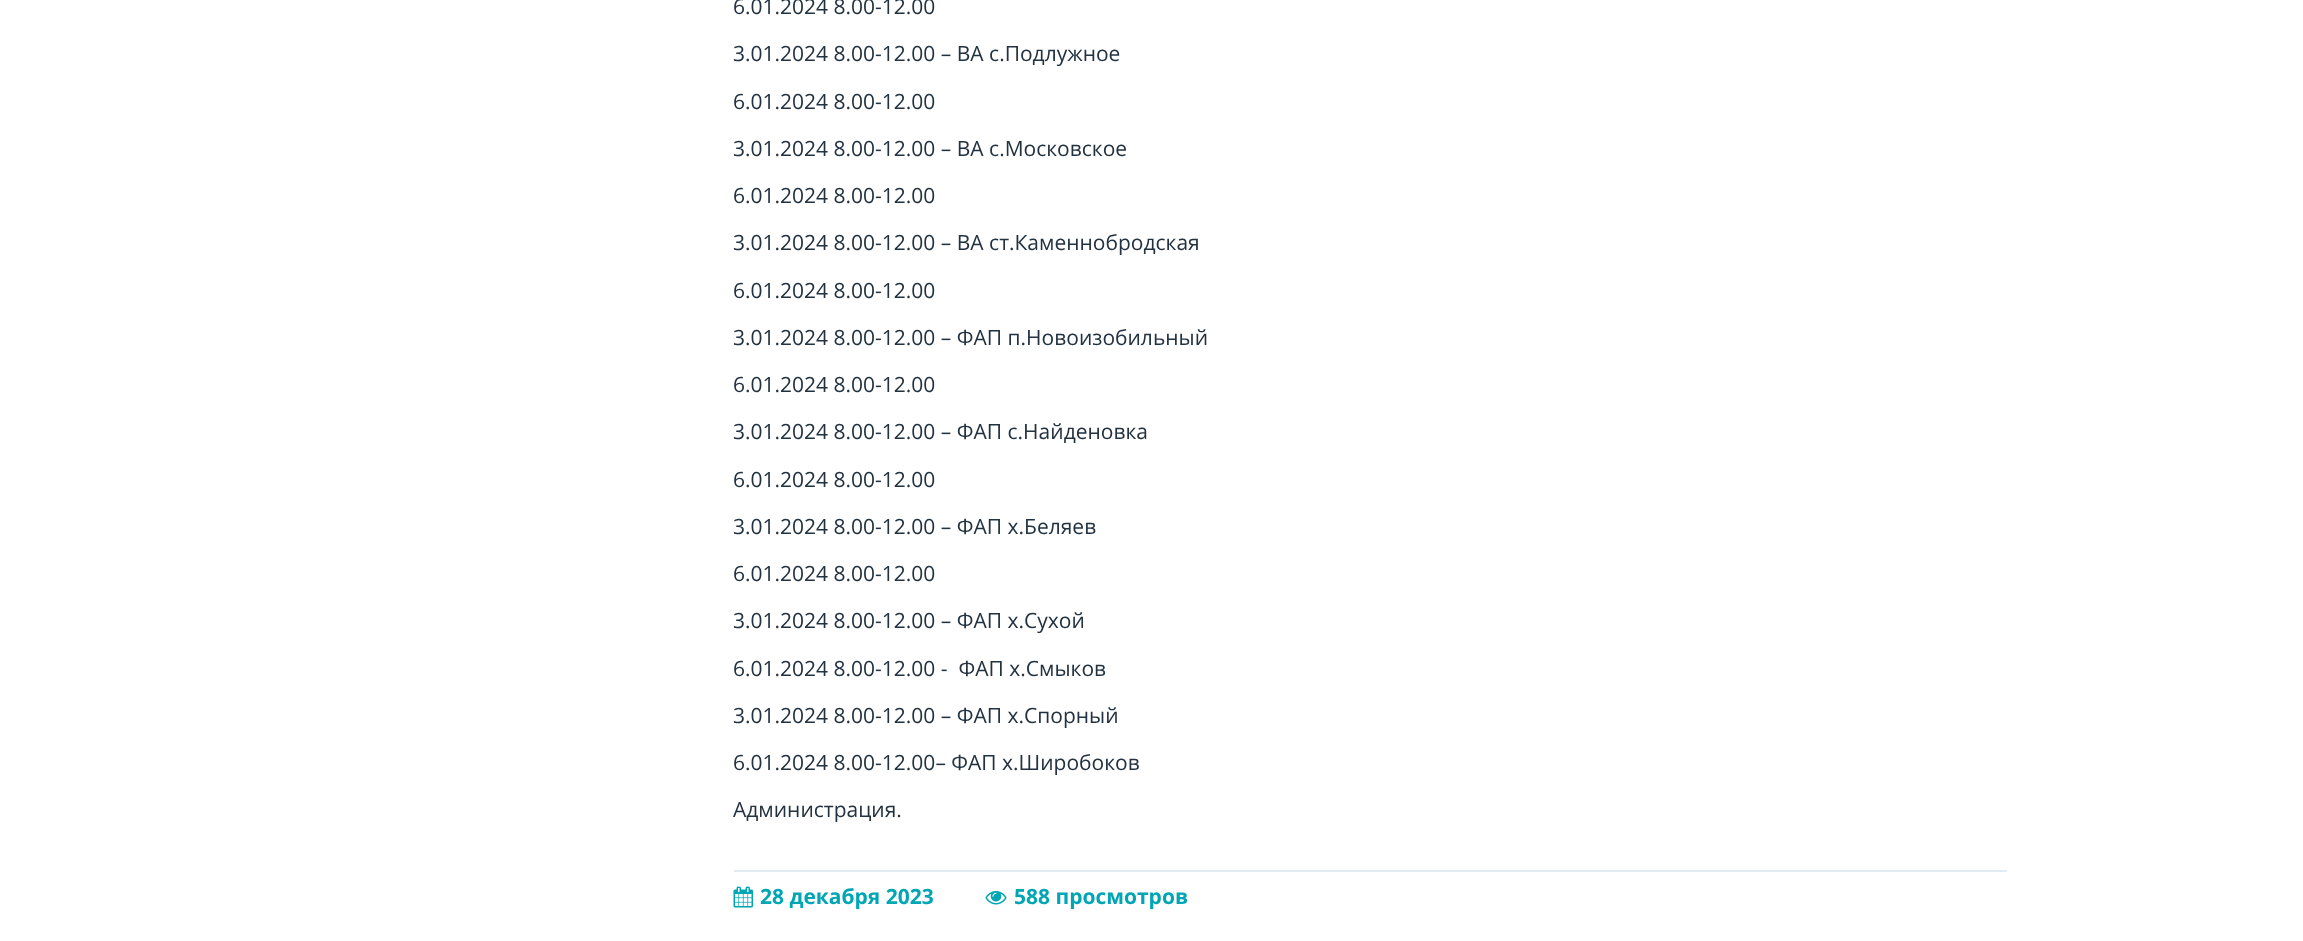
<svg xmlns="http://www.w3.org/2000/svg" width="2303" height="941">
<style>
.a{font:21px Open Sans;fill:#223240}
.b{font:bold 21px Open Sans;fill:#00a6b4}
</style>
<rect width="100%" height="100%" fill="#fff"/>
<path fill="#e0ebf2" d="M734 870h1273v2H734z"/>
<image href="1.png" x="733" y="886" width="20" height="22"/>
<image href="2.png" x="985" y="891" width="22" height="14"/>
<text class="a" x="733" y="14">6.01.2024 8.00-12.00</text>
<text class="a" x="733" y="61">3.01.2024 8.00-12.00 – ВА с.Подлужное</text>
<text class="a" x="733" y="109">6.01.2024 8.00-12.00</text>
<text class="a" x="733" y="156">3.01.2024 8.00-12.00 – ВА с.Московское</text>
<text class="a" x="733" y="203">6.01.2024 8.00-12.00</text>
<text class="a" x="733" y="250">3.01.2024 8.00-12.00 – ВА ст.Каменнобродская</text>
<text class="a" x="733" y="298">6.01.2024 8.00-12.00</text>
<text class="a" x="733" y="345">3.01.2024 8.00-12.00 – ФАП п.Новоизобильный</text>
<text class="a" x="733" y="392">6.01.2024 8.00-12.00</text>
<text class="a" x="733" y="439">3.01.2024 8.00-12.00 – ФАП с.Найденовка</text>
<text class="a" x="733" y="487">6.01.2024 8.00-12.00</text>
<text class="a" x="733" y="534">3.01.2024 8.00-12.00 – ФАП х.Беляев</text>
<text class="a" x="733" y="581">6.01.2024 8.00-12.00</text>
<text class="a" x="733" y="628">3.01.2024 8.00-12.00 – ФАП х.Сухой</text>
<text class="a" xml:space="preserve" x="733" y="676">6.01.2024 8.00-12.00 -  ФАП х.Смыков</text>
<text class="a" x="733" y="723">3.01.2024 8.00-12.00 – ФАП х.Спорный</text>
<text class="a" x="733" y="770">6.01.2024 8.00-12.00– ФАП х.Широбоков</text>
<text class="a" x="733" y="817">Администрация.</text>
<text class="b" x="760" y="904">28 декабря 2023</text>
<text class="b" x="1014" y="904">588 просмотров</text>
</svg>
